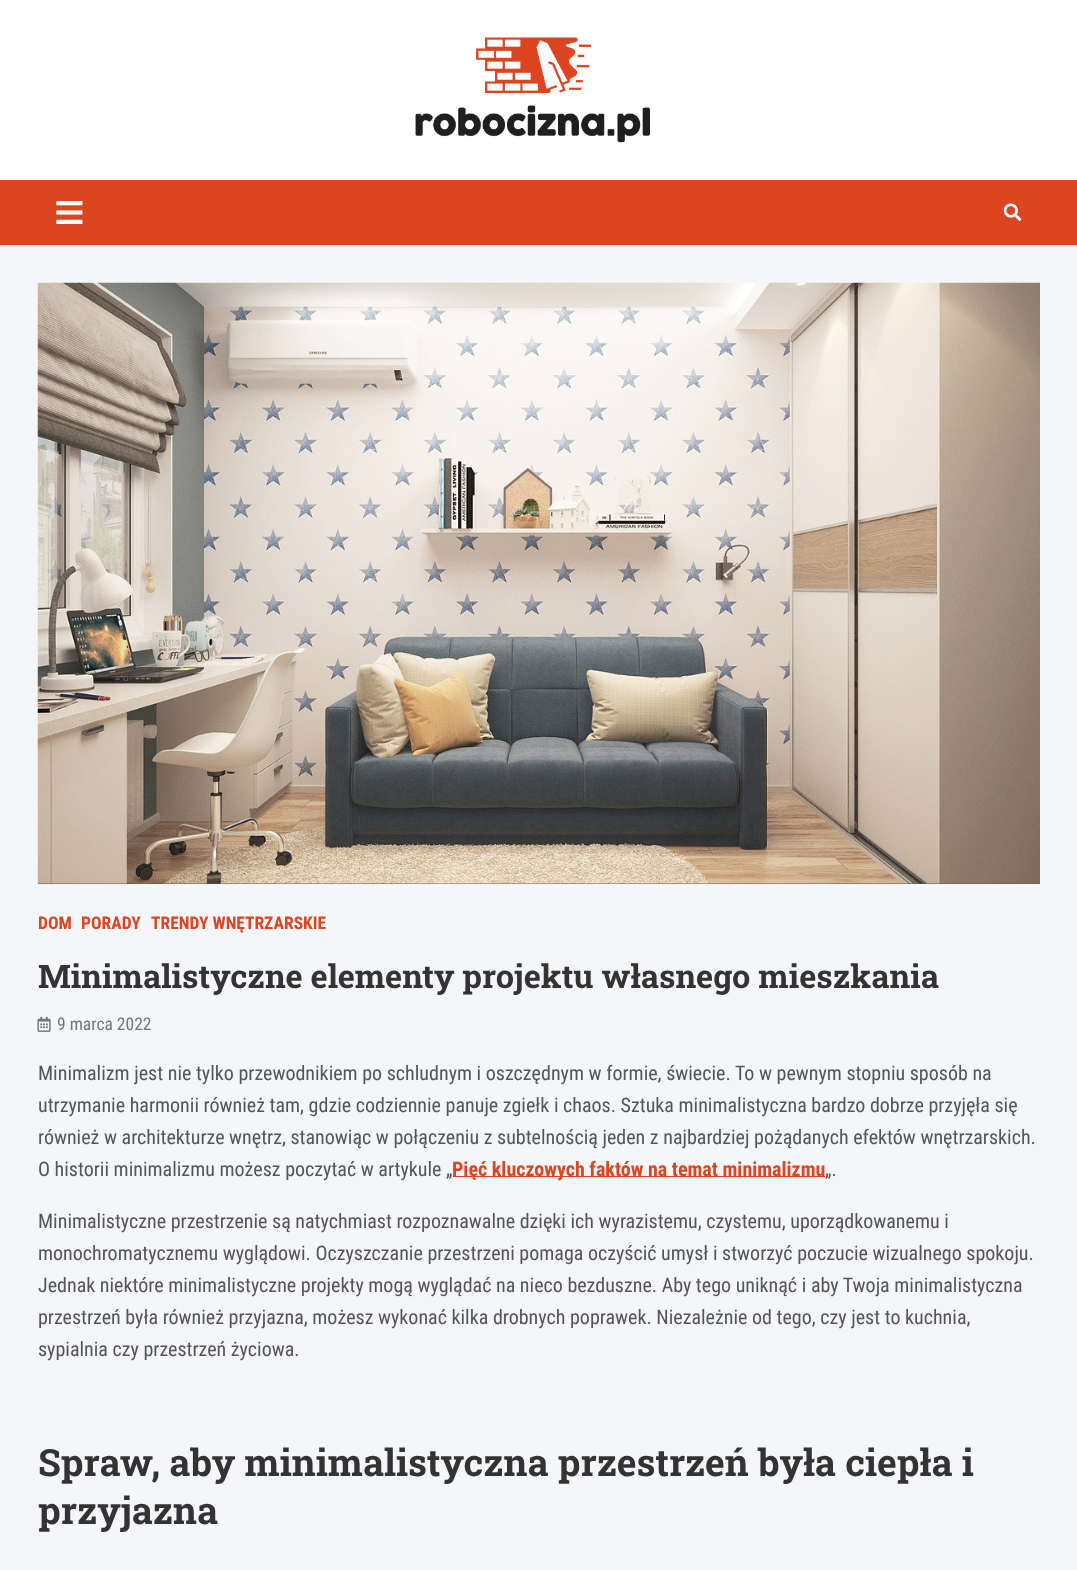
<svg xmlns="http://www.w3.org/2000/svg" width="1077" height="1570">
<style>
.a{font:bold 17.5px Roboto Condensed;fill:#dd4521}
.b{font:bold 32.5px Roboto Slab;fill:#333}
.c{font:17.5px Roboto Condensed;fill:#757576}
.d{font:20px Roboto Condensed;fill:#555}
.e{font:bold 20px Roboto Condensed;fill:#dd4521}
.f{font:bold 37.5px Roboto Slab;fill:#333}
</style>
<rect width="100%" height="100%" fill="#f4f6f9"/>
<path fill="#fff" d="M0 0h1077v180H0z"/>
<image href="1.png" x="415" y="37" width="235" height="106"/>
<path fill="#dd4521" d="M0 180h1077v65H0z"/>
<image href="2.png" x="56" y="201" width="27" height="23"/>
<image href="3.png" x="1003" y="203" width="19" height="18"/>
<path fill="#555" d="M38 883h1002v1H38z"/>
<image href="4.png" x="37" y="282" width="1003" height="602"/>
<image href="5.png" x="37" y="1016" width="14" height="16"/>
<path fill="#dd4521" d="M453 1176h372v1H453z"/>
<text class="a" x="38" y="929">DOM</text>
<text class="a" x="81" y="929">PORADY</text>
<text class="a" x="151" y="929">TRENDY WNĘTRZARSKIE</text>
<text class="b" x="38" y="988">Minimalistyczne elementy projektu własnego mieszkania</text>
<text class="c" x="57" y="1030">9 marca 2022</text>
<text class="d" x="38" y="1080">Minimalizm jest nie tylko przewodnikiem po schludnym i oszczędnym w formie, świecie. To w pewnym stopniu sposób na</text>
<text class="d" x="38" y="1112">utrzymanie harmonii również tam, gdzie codziennie panuje zgiełk i chaos. Sztuka minimalistyczna bardzo dobrze przyjęła się</text>
<text class="d" x="38" y="1144">również w architekturze wnętrz, stanowiąc w połączeniu z subtelnością jeden z najbardziej pożądanych efektów wnętrzarskich.</text>
<text class="d" x="38" y="1176">O historii minimalizmu możesz poczytać w artykule „</text>
<text class="e" x="452" y="1176">Pięć kluczowych faktów na temat minimalizmu</text>
<text class="d" x="825" y="1176">„.</text>
<text class="d" x="38" y="1228">Minimalistyczne przestrzenie są natychmiast rozpoznawalne dzięki ich wyrazistemu, czystemu, uporządkowanemu i</text>
<text class="d" x="38" y="1260">monochromatycznemu wyglądowi. Oczyszczanie przestrzeni pomaga oczyścić umysł i stworzyć poczucie wizualnego spokoju.</text>
<text class="d" x="38" y="1292">Jednak niektóre minimalistyczne projekty mogą wyglądać na nieco bezduszne. Aby tego uniknąć i aby Twoja minimalistyczna</text>
<text class="d" x="38" y="1324">przestrzeń była również przyjazna, możesz wykonać kilka drobnych poprawek. Niezależnie od tego, czy jest to kuchnia,</text>
<text class="d" x="38" y="1356">sypialnia czy przestrzeń życiowa.</text>
<text class="f" x="38" y="1476">Spraw, aby minimalistyczna przestrzeń była ciepła i</text>
<text class="f" x="38" y="1524">przyjazna</text>
</svg>
